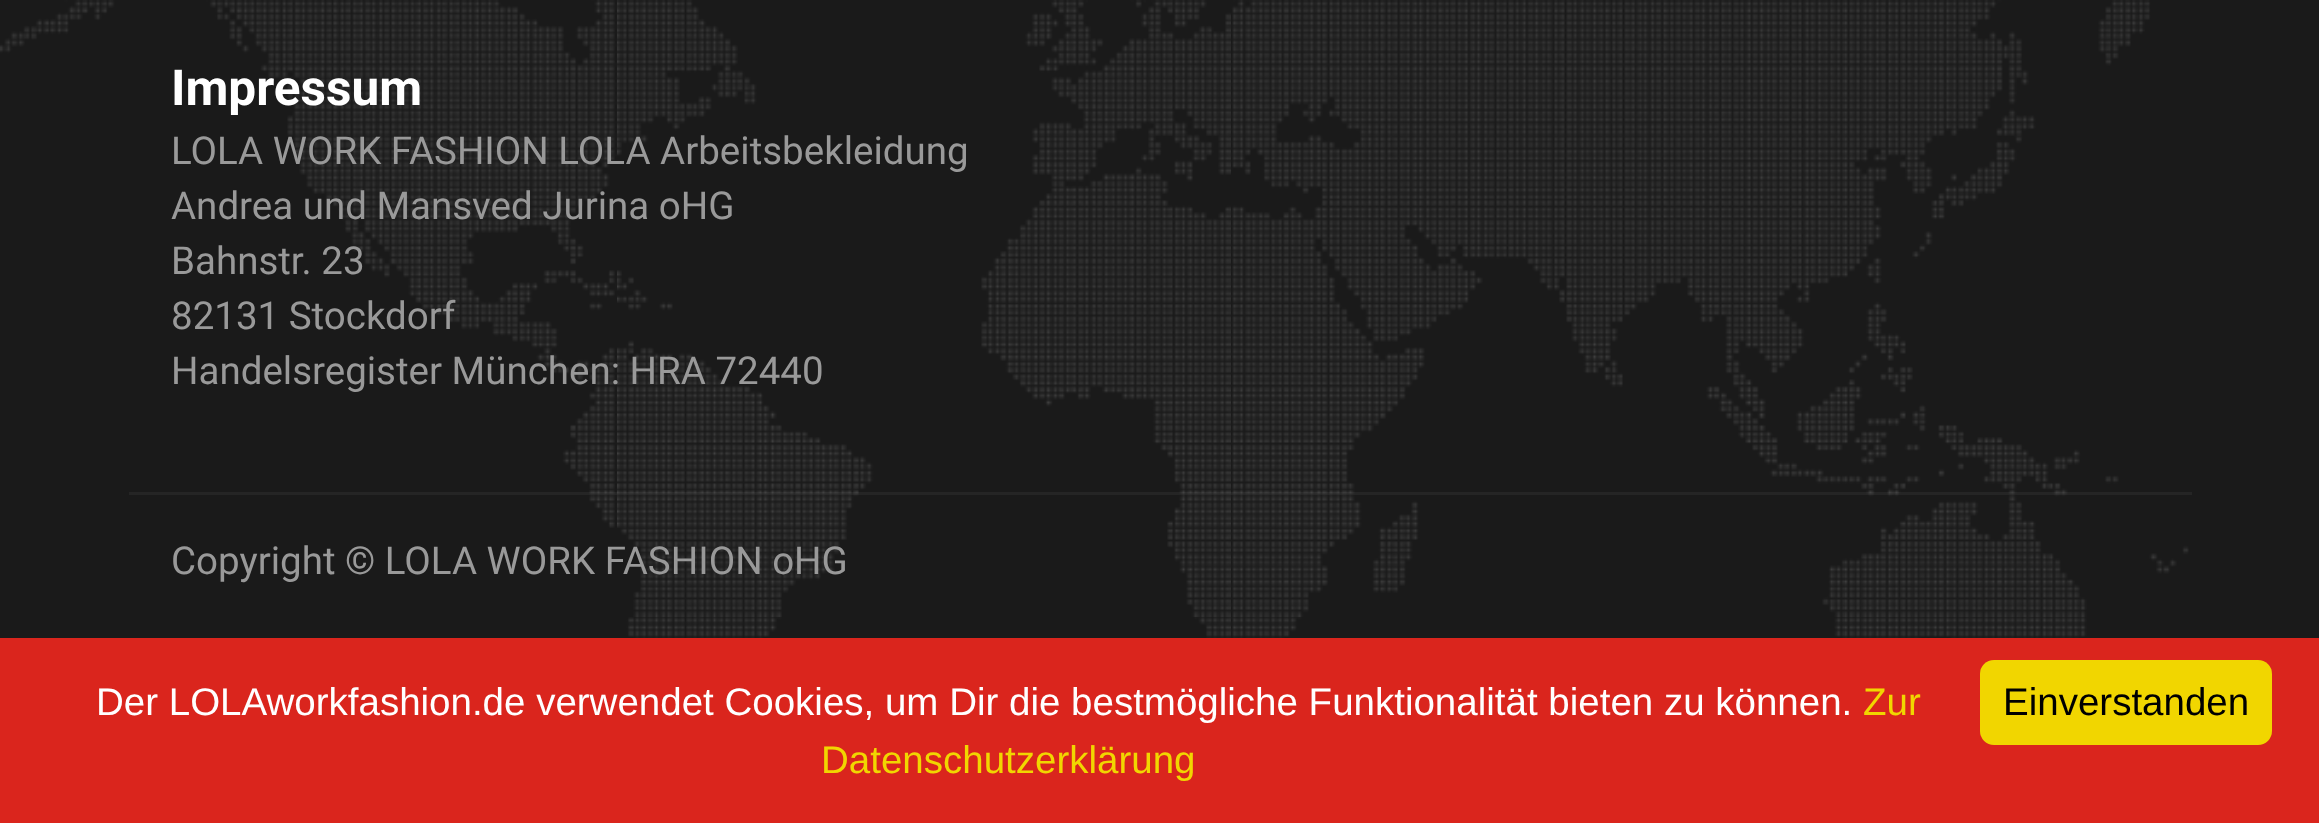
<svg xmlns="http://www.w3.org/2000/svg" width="2319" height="823">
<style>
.a{font:bold 49.5px Roboto;fill:#fff}
.b{font:38.5px Roboto;fill:#999}
.c{font:38.5px Liberation Sans;fill:#fff}
.d{font:38.5px Liberation Sans;fill:#f1d600}
.e{font:38.5px Liberation Sans;fill:#000}
</style>
<rect width="100%" height="100%" fill="#fff"/>
<image href="1.png" x="0" y="0" width="2319" height="638"/>
<path fill="#ffffff0d" d="M129 492h2063v3H129z"/>
<path fill="#da251d" d="M0 638h2319v185H0z"/>
<rect fill="#f1d600" x="1980" y="660" width="292" height="85" rx="14"/>
<text class="a" x="171" y="105">Impressum</text>
<text class="b" x="171" y="164">LOLA WORK FASHION LOLA Arbeitsbekleidung</text>
<text class="b" x="171" y="219">Andrea und Mansved Jurina oHG</text>
<text class="b" x="171" y="274">Bahnstr. 23</text>
<text class="b" x="171" y="329">82131 Stockdorf</text>
<text class="b" x="171" y="384">Handelsregister München: HRA 72440</text>
<text class="b" x="171" y="574">Copyright © LOLA WORK FASHION oHG</text>
<text class="c" x="96" y="715">Der LOLAworkfashion.de verwendet Cookies, um Dir die bestmögliche Funktionalität bieten zu können.</text>
<text class="d" x="1863" y="715">Zur</text>
<text class="d" x="821" y="773">Datenschutzerklärung</text>
<text class="e" x="2003" y="715">Einverstanden</text>
</svg>
